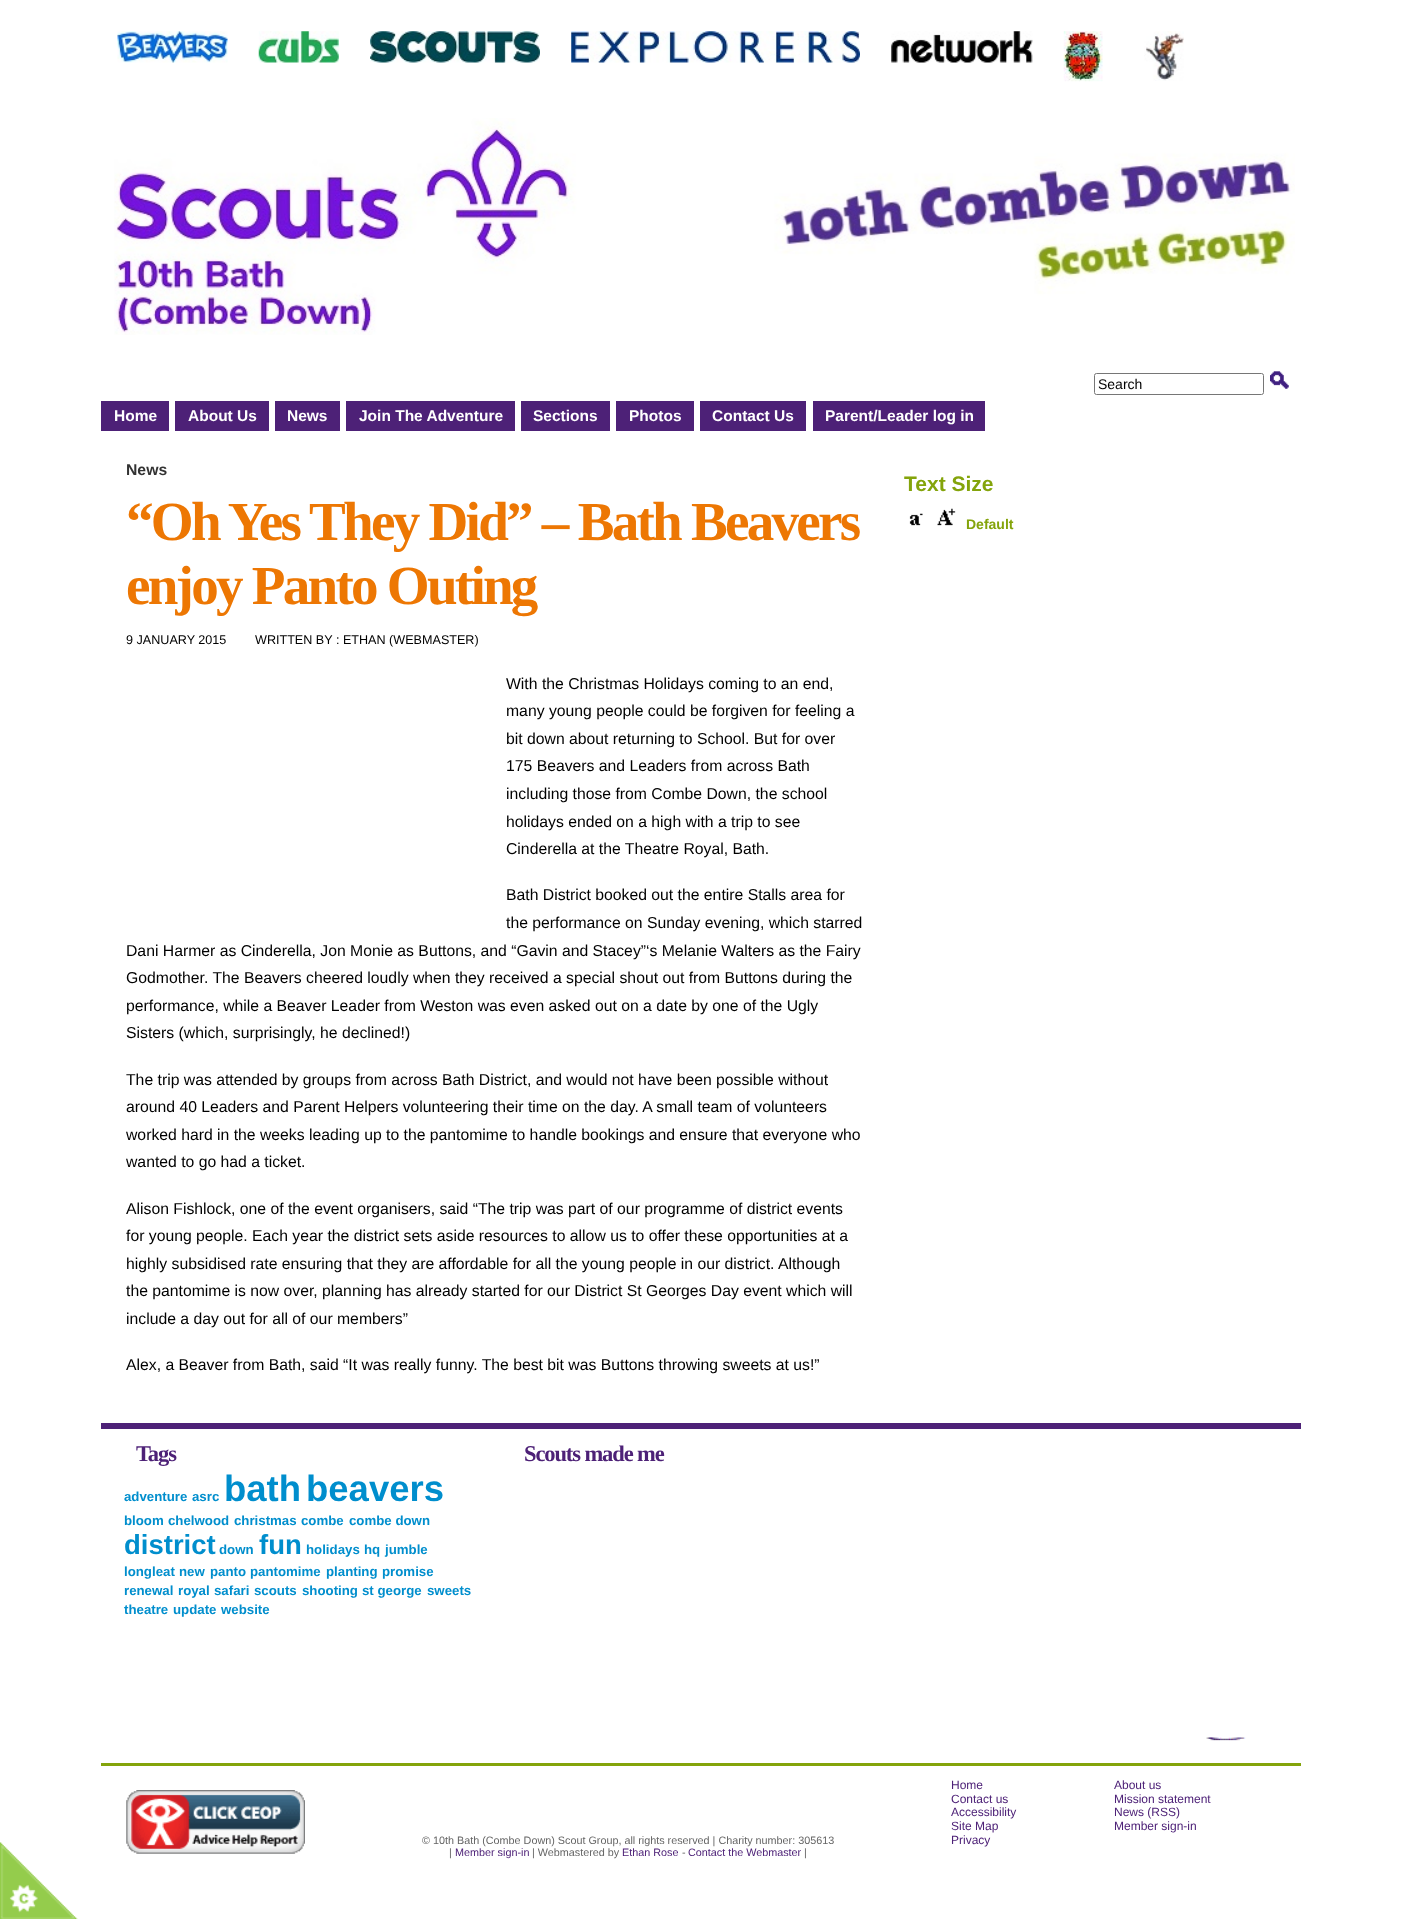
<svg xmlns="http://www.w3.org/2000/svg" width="1402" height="1919">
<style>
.a{font:14px Liberation Sans;fill:#000}
.b{font:bold 15.5px Liberation Sans;fill:#fff}
.c{font:bold 15.75px Liberation Sans;fill:#333}
.d{font:bold 55.1px Liberation Serif;letter-spacing:-2.75px;fill:#ed7703}
.e{font:12.6px Liberation Sans;fill:#000}
.f{font:15.75px Liberation Sans;fill:#000}
.g{font:bold 21px Liberation Sans;fill:#84a40b}
.h{font:bold 14px Liberation Sans;fill:#84a40b}
.i{font:bold 22.5px Liberation Serif;letter-spacing:-1.1px;fill:#4d2177}
.j{font:bold 13.25px Liberation Sans;fill:#008ecd}
.k{font:bold 36.5px Liberation Sans;fill:#008ecd}
.l{font:bold 27.5px Liberation Sans;fill:#008ecd}
.m{font:10.8px Liberation Sans;fill:#656565}
.n{font:10.8px Liberation Sans;fill:#4d2177}
.o{font:12px Liberation Sans;fill:#4d2177}
</style>
<rect width="100%" height="100%" fill="#fff"/>
<image href="1.png" x="117" y="31" width="111" height="32"/>
<image href="2.png" x="258" y="31" width="81" height="32"/>
<image href="3.png" x="370" y="31" width="170" height="32"/>
<image href="4.png" x="571" y="31" width="289" height="32"/>
<image href="5.png" x="891" y="31" width="142" height="32"/>
<image href="6.png" x="1063" y="31" width="40" height="51"/>
<image href="7.png" x="1144" y="31" width="40" height="50"/>
<image href="8.png" x="114" y="118" width="1181" height="217"/>
<rect fill="none" stroke="#767676" x="1094.5" y="373.5" width="169" height="21" rx="2"/>
<image href="9.png" x="1270" y="371" width="19" height="18"/>
<path fill="#4d2177" d="M101 401h68v30H101z"/>
<path fill="#4d2177" d="M175 401h94v30H175z"/>
<path fill="#4d2177" d="M275 401h65v30H275z"/>
<path fill="#4d2177" d="M346 401h169v30H346z"/>
<path fill="#4d2177" d="M521 401h89v30H521z"/>
<path fill="#4d2177" d="M616 401h78v30H616z"/>
<path fill="#4d2177" d="M700 401h106v30H700z"/>
<path fill="#4d2177" d="M813 401h172v30H813z"/>
<image href="10.png" x="909" y="513" width="14" height="13"/>
<image href="11.png" x="937" y="508" width="19" height="18"/>
<path fill="#4d2177" d="M101 1423h1200v6H101z"/>
<image href="12.png" x="1206" y="1737" width="40" height="4"/>
<path fill="#84a40b" d="M101 1763h1200v3H101z"/>
<image href="13.png" x="126" y="1790" width="179" height="64"/>
<image href="14.png" x="0" y="1842" width="78" height="77"/>
<text class="a" x="1098" y="389">Search</text>
<text class="b" x="114" y="421">Home</text>
<text class="b" x="188" y="421">About Us</text>
<text class="b" x="287" y="421">News</text>
<text class="b" x="359" y="421">Join The Adventure</text>
<text class="b" x="533" y="421">Sections</text>
<text class="b" x="629" y="421">Photos</text>
<text class="b" x="712" y="421">Contact Us</text>
<text class="b" x="825" y="421">Parent/Leader log in</text>
<text class="c" x="126" y="475">News</text>
<text class="d" x="126" y="540">“Oh Yes They Did” – Bath Beavers</text>
<text class="d" x="126" y="604">enjoy Panto Outing</text>
<text class="e" x="126" y="644">9 JANUARY 2015</text>
<text class="e" x="255" y="644">WRITTEN BY : ETHAN (WEBMASTER)</text>
<text class="f" x="506" y="689">With the Christmas Holidays coming to an end,</text>
<text class="f" x="506" y="716">many young people could be forgiven for feeling a</text>
<text class="f" x="506" y="744">bit down about returning to School. But for over</text>
<text class="f" x="506" y="771">175 Beavers and Leaders from across Bath</text>
<text class="f" x="506" y="799">including those from Combe Down, the school</text>
<text class="f" x="506" y="827">holidays ended on a high with a trip to see</text>
<text class="f" x="506" y="854">Cinderella at the Theatre Royal, Bath.</text>
<text class="f" x="506" y="900">Bath District booked out the entire Stalls area for</text>
<text class="f" x="506" y="928">the performance on Sunday evening, which starred</text>
<text class="f" x="126" y="956">Dani Harmer as Cinderella, Jon Monie as Buttons, and “Gavin and Stacey”‘s Melanie Walters as the Fairy</text>
<text class="f" x="126" y="983">Godmother. The Beavers cheered loudly when they received a special shout out from Buttons during the</text>
<text class="f" x="126" y="1011">performance, while a Beaver Leader from Weston was even asked out on a date by one of the Ugly</text>
<text class="f" x="126" y="1038">Sisters (which, surprisingly, he declined!)</text>
<text class="f" x="126" y="1085">The trip was attended by groups from across Bath District, and would not have been possible without</text>
<text class="f" x="126" y="1112">around 40 Leaders and Parent Helpers volunteering their time on the day. A small team of volunteers</text>
<text class="f" x="126" y="1140">worked hard in the weeks leading up to the pantomime to handle bookings and ensure that everyone who</text>
<text class="f" x="126" y="1167">wanted to go had a ticket.</text>
<text class="f" x="126" y="1214">Alison Fishlock, one of the event organisers, said “The trip was part of our programme of district events</text>
<text class="f" x="126" y="1241">for young people. Each year the district sets aside resources to allow us to offer these opportunities at a</text>
<text class="f" x="126" y="1269">highly subsidised rate ensuring that they are affordable for all the young people in our district. Although</text>
<text class="f" x="126" y="1296">the pantomime is now over, planning has already started for our District St Georges Day event which will</text>
<text class="f" x="126" y="1324">include a day out for all of our members”</text>
<text class="f" x="126" y="1370">Alex, a Beaver from Bath, said “It was really funny. The best bit was Buttons throwing sweets at us!”</text>
<text class="g" x="904" y="491">Text Size</text>
<text class="h" x="966" y="529">Default</text>
<text class="i" x="136" y="1461">Tags</text>
<text class="j" x="124" y="1501">adventure</text>
<text class="j" x="192" y="1501">asrc</text>
<text class="k" x="224" y="1501">bath</text>
<text class="k" x="306" y="1501">beavers</text>
<text class="j" x="124" y="1525">bloom</text>
<text class="j" x="168" y="1525">chelwood</text>
<text class="j" x="234" y="1525">christmas</text>
<text class="j" x="301" y="1525">combe</text>
<text class="j" x="349" y="1525">combe down</text>
<text class="l" x="124" y="1554">district</text>
<text class="j" x="219" y="1554">down</text>
<text class="l" x="259" y="1554">fun</text>
<text class="j" x="306" y="1554">holidays</text>
<text class="j" x="364" y="1554">hq</text>
<text class="j" x="385" y="1554">jumble</text>
<text class="j" x="124" y="1576">longleat</text>
<text class="j" x="179" y="1576">new</text>
<text class="j" x="210" y="1576">panto</text>
<text class="j" x="250" y="1576">pantomime</text>
<text class="j" x="326" y="1576">planting</text>
<text class="j" x="382" y="1576">promise</text>
<text class="j" x="124" y="1595">renewal</text>
<text class="j" x="178" y="1595">royal</text>
<text class="j" x="214" y="1595">safari</text>
<text class="j" x="254" y="1595">scouts</text>
<text class="j" x="302" y="1595">shooting</text>
<text class="j" x="362" y="1595">st george</text>
<text class="j" x="427" y="1595">sweets</text>
<text class="j" x="124" y="1614">theatre</text>
<text class="j" x="173" y="1614">update</text>
<text class="j" x="221" y="1614">website</text>
<text class="i" x="524" y="1461">Scouts made me</text>
<text class="m" x="422" y="1844">© 10th Bath (Combe Down) Scout Group, all rights reserved | Charity number: 305613</text>
<text class="m" x="449" y="1856">|</text>
<text class="n" x="455" y="1856">Member sign-in</text>
<text class="m" x="532" y="1856">| Webmastered by</text>
<text class="n" x="622" y="1856">Ethan Rose</text>
<text class="m" x="682" y="1856">-</text>
<text class="n" x="688" y="1856">Contact the Webmaster</text>
<text class="m" x="804" y="1856">|</text>
<text class="o" x="951" y="1789">Home</text>
<text class="o" x="951" y="1803">Contact us</text>
<text class="o" x="951" y="1816">Accessibility</text>
<text class="o" x="951" y="1830">Site Map</text>
<text class="o" x="951" y="1844">Privacy</text>
<text class="o" x="1114" y="1789">About us</text>
<text class="o" x="1114" y="1803">Mission statement</text>
<text class="o" x="1114" y="1816">News (RSS)</text>
<text class="o" x="1114" y="1830">Member sign-in</text>
</svg>
